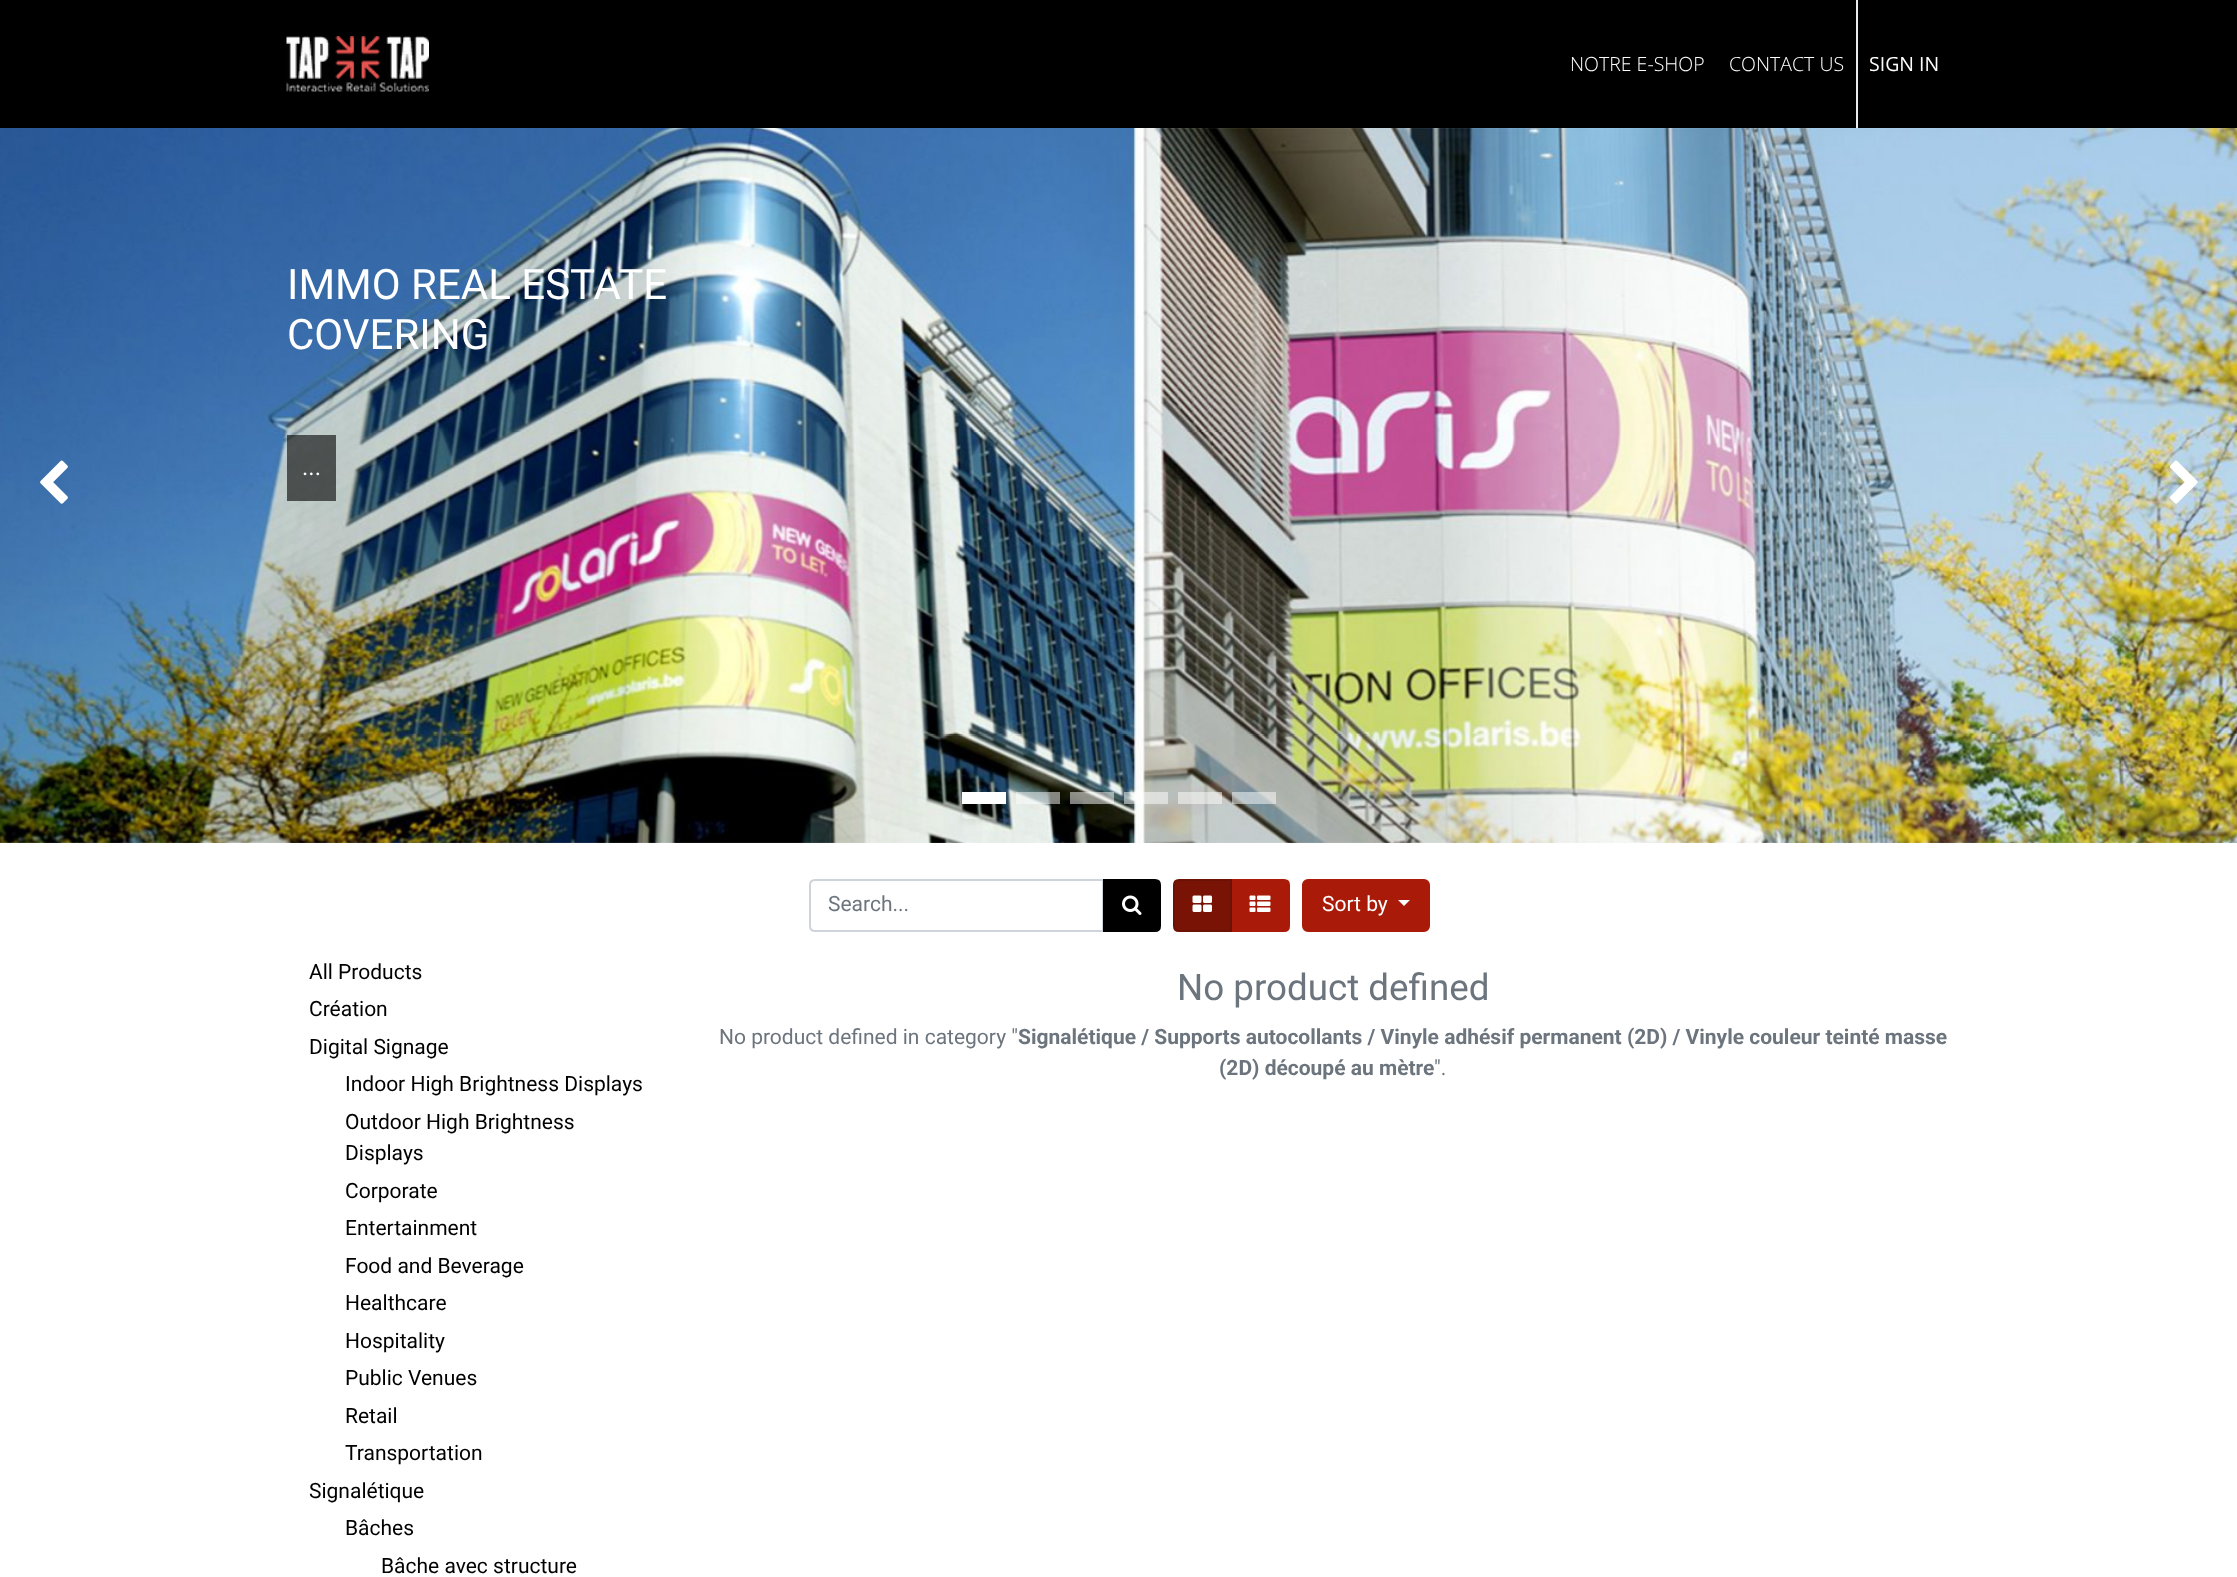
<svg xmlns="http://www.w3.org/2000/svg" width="2237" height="1577">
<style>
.a{font:300 19.5px Open Sans;fill:#fff}
.b{font:19.5px Open Sans;fill:#fff}
.c{font:42px Roboto;fill:#fff}
.d{font:24px Roboto;fill:#fff}
.e{font:21px Roboto;fill:#6c757d}
.f{font:21px Roboto;fill:#fff}
.g{font:21px Roboto;fill:#000}
.h{font:36.75px Roboto;fill:#6c757d}
.i{font:bold 21px Roboto;fill:#6c757d}
</style>
<defs>
<clipPath id="clip1"><path d="M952 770h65v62h-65zm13 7h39c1.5 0 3 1.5 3 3v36c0 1.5-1.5 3-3 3h-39c-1.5 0-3-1.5-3-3v-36c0-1.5 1.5-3 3-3z" clip-rule="evenodd"/></clipPath>
</defs>
<rect width="100%" height="100%" fill="#fff"/>
<path fill="#000" d="M0 0h2237v128H0z"/>
<image href="1.png" x="286" y="36" width="143" height="56"/>
<path fill="#e9ecef" d="M1856 0h2v128H1856z"/>
<image href="2.png" x="0" y="128" width="2237" height="715"/>
<path fill="#00000099" d="M287 435h49v66H287z"/>
<image href="3.png" x="40" y="460" width="28" height="44"/>
<image href="4.png" x="2169" y="460" width="29" height="44"/>
<g clip-path="url(#clip1)">
<rect fill="#00000012" filter="blur(3px)" x="962" y="780" width="45" height="42" rx="3"/>
</g>
<path fill="#fff" d="M964 792h42v12h-44v-12z"/>
<path fill="#ffffff80" d="M1018 792h42v12h-44v-12z"/>
<path fill="#ffffff80" d="M1072 792h42v12h-44v-12z"/>
<path fill="#ffffff80" d="M1126 792h42v12h-44v-12z"/>
<path fill="#ffffff80" d="M1180 792h42v12h-44v-12z"/>
<path fill="#ffffff80" d="M1234 792h42v12h-44v-12z"/>
<path fill="none" stroke="#ced4da" stroke-width="2" d="M815 880h288v51h-288c-3 0-5-2-5-5v-41c0-3 2-5 5-5z"/>
<path fill="#000" stroke="#000" stroke-width="2" d="M1104 880h51c3 0 5 2 5 5v41c0 3-2 5-5 5h-51z"/>
<image href="5.png" x="1122" y="895" width="20" height="20"/>
<path fill="#a91b08" stroke="#a91b08" stroke-width="2" d="M1231 880h53c3 0 5 2 5 5v41c0 3-2 5-5 5h-53z"/>
<path fill="#781306" stroke="#6c1105" stroke-width="2" d="M1179 880h52v51h-52c-3 0-5-2-5-5v-41c0-3 2-5 5-5z"/>
<image href="6.png" x="1192" y="895" width="20" height="17"/>
<image href="7.png" x="1249" y="895" width="22" height="17"/>
<rect fill="#a91b08" stroke="#a91b08" stroke-width="2" x="1303" y="880" width="126" height="51" rx="5"/>
<path fill="#fff" d="M1398 900h12l-6 6z"/>
<text class="a" x="1570" y="71">NOTRE E-SHOP</text>
<text class="a" x="1729" y="71">CONTACT US</text>
<text class="b" x="1869" y="71">SIGN IN</text>
<text class="c" x="287" y="299">IMMO REAL ESTATE</text>
<text class="c" x="287" y="349">COVERING</text>
<text class="d" x="302" y="475">...</text>
<text class="e" x="828" y="911">Search...</text>
<text class="f" x="1322" y="911">Sort by</text>
<text class="g" x="309" y="979">All Products</text>
<text class="g" x="309" y="1016">Création</text>
<text class="g" x="309" y="1054">Digital Signage</text>
<text class="g" x="345" y="1091">Indoor High Brightness Displays</text>
<text class="g" x="345" y="1129">Outdoor High Brightness</text>
<text class="g" x="345" y="1160">Displays</text>
<text class="g" x="345" y="1198">Corporate</text>
<text class="g" x="345" y="1235">Entertainment</text>
<text class="g" x="345" y="1273">Food and Beverage</text>
<text class="g" x="345" y="1310">Healthcare</text>
<text class="g" x="345" y="1348">Hospitality</text>
<text class="g" x="345" y="1385">Public Venues</text>
<text class="g" x="345" y="1423">Retail</text>
<text class="g" x="345" y="1460">Transportation</text>
<text class="g" x="309" y="1498">Signalétique</text>
<text class="g" x="345" y="1535">Bâches</text>
<text class="g" x="381" y="1573">Bâche avec structure</text>
<text class="h" x="1177" y="1000">No product defined</text>
<text class="e" x="719" y="1044">No product defined in category "</text>
<text class="i" x="1018" y="1044">Signalétique / Supports autocollants / Vinyle adhésif permanent (2D) / Vinyle couleur teinté masse</text>
<text class="i" x="1219" y="1075">(2D) découpé au mètre</text>
<text class="e" x="1434" y="1075">".</text>
</svg>
